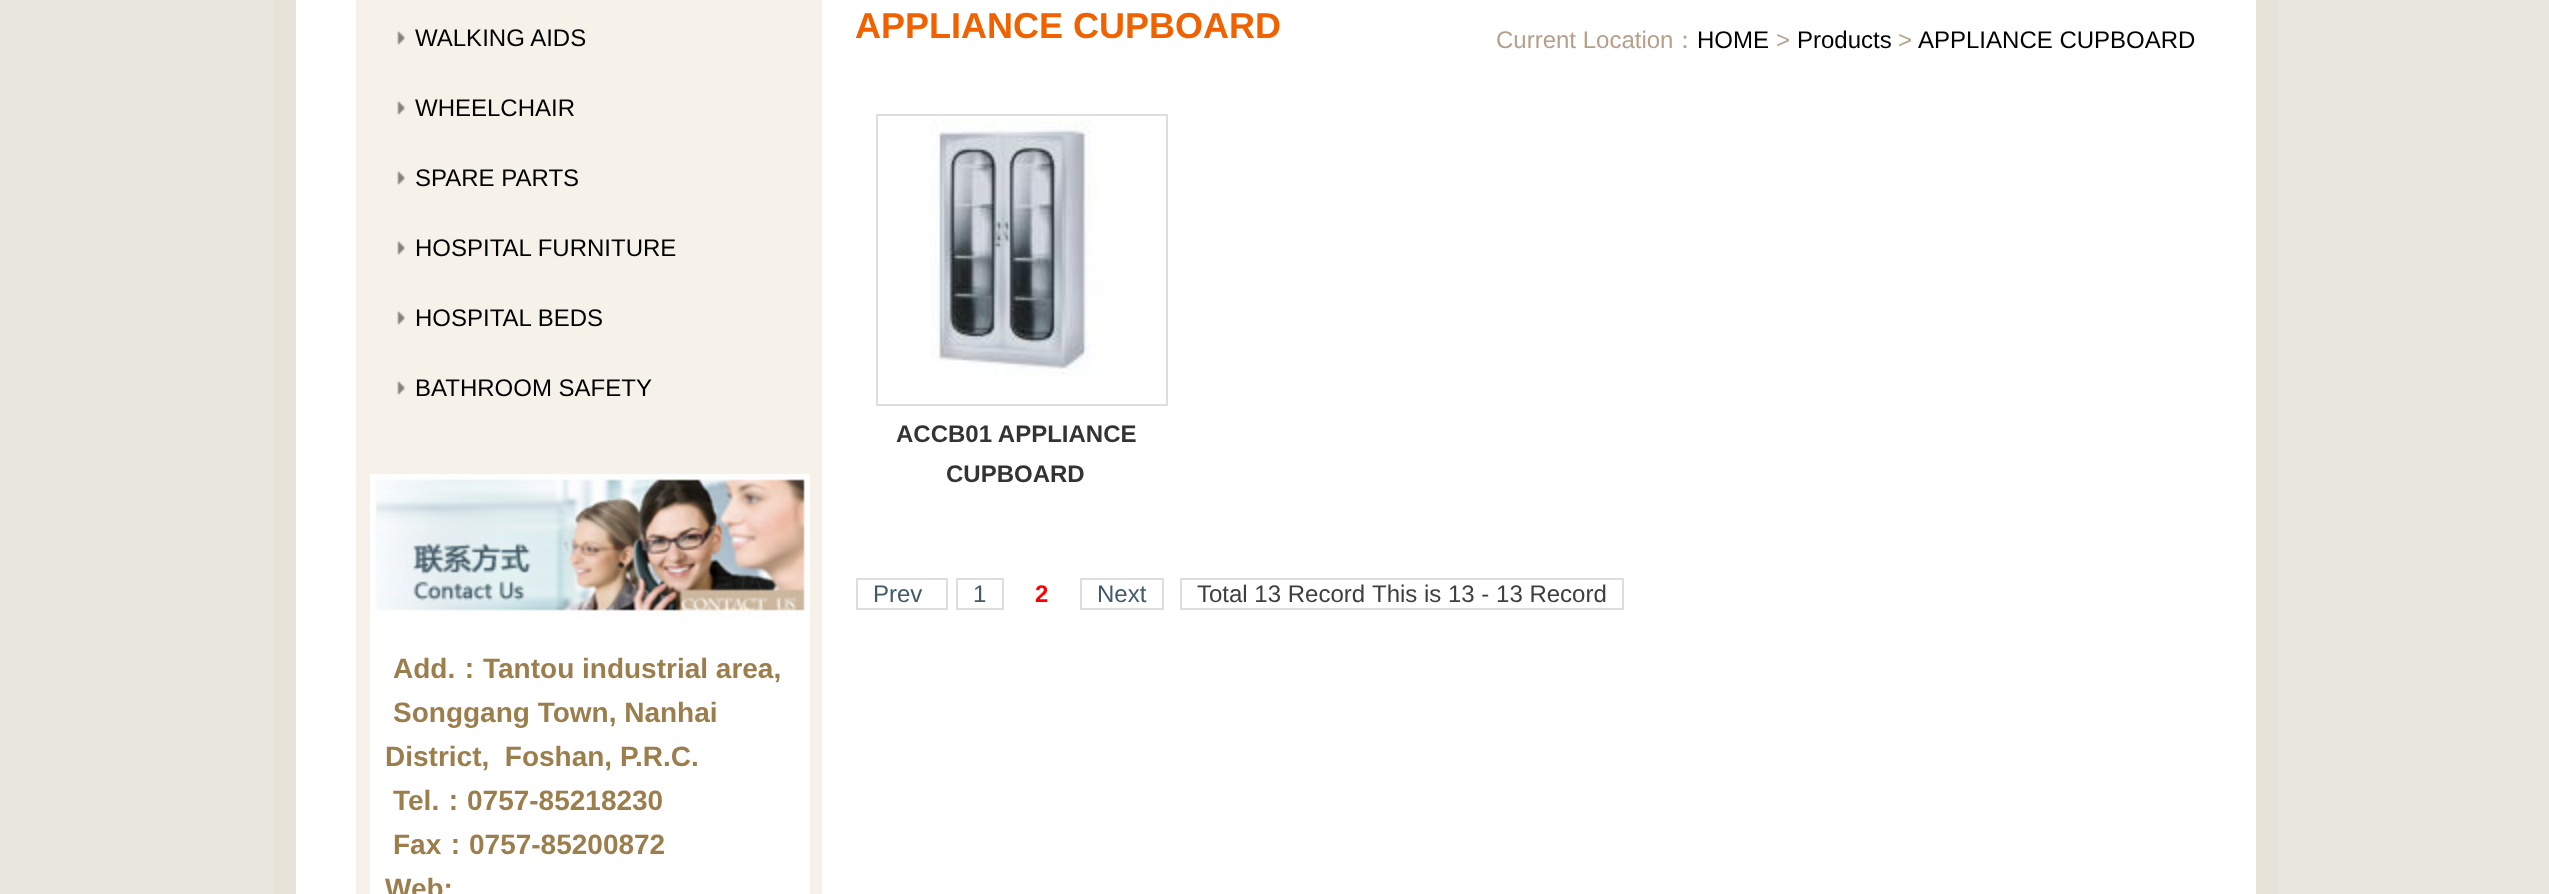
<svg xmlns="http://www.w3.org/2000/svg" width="2549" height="894">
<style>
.a{font:24px Liberation Sans;fill:#000}
.b{font:bold 28px Liberation Sans;fill:#9c7e4c}
.c{font:bold 28px WenQuanYi Zen Hei;fill:#9c7e4c}
.d{font:bold 36px Liberation Sans;fill:#f06200}
.e{font:24px Liberation Sans;fill:#b6a08b}
.f{font:500 24px WenQuanYi Zen Hei;fill:#b6a08b}
.g{font:bold 24px Liberation Sans;fill:#333}
.h{font:24px Liberation Sans;fill:#415a67}
.i{font:bold 24px Liberation Sans;fill:#f00}
.j{font:24px Liberation Sans;fill:#3e3e3e}
</style>
<rect width="100%" height="100%" fill="#e7e7df"/>
<path fill="#fff" d="M296 0h1960v894H296z"/>
<path fill="#e7e3d8" d="M2256 0h22v894H2256z"/>
<path fill="#e7e3d8" d="M274 0h22v894H274z"/>
<path fill="#f6f2e9" d="M356 0h466v894H356z"/>
<image href="1.png" x="397" y="31" width="8" height="14"/>
<image href="1.png" x="397" y="101" width="8" height="14"/>
<image href="1.png" x="397" y="171" width="8" height="14"/>
<image href="1.png" x="397" y="241" width="8" height="14"/>
<image href="1.png" x="397" y="311" width="8" height="14"/>
<image href="1.png" x="397" y="381" width="8" height="14"/>
<path fill="#fff" d="M370 474h440v420H370z"/>
<image href="2.png" x="375" y="474" width="433" height="144"/>
<path fill="none" stroke="#ddd" stroke-width="2" d="M877 115h290v290H877z"/>
<image href="3.png" x="930" y="120" width="174" height="256"/>
<path fill="none" stroke="#ddd" stroke-width="2" d="M857 579h90v30H857z"/>
<path fill="none" stroke="#ddd" stroke-width="2" d="M957 579h46v30H957z"/>
<path fill="none" stroke="#ddd" stroke-width="2" d="M1081 579h82v30H1081z"/>
<path fill="none" stroke="#ddd" stroke-width="2" d="M1181 579h442v30H1181z"/>
<text class="a" x="415" y="46">WALKING AIDS</text>
<text class="a" x="415" y="116">WHEELCHAIR</text>
<text class="a" x="415" y="186">SPARE PARTS</text>
<text class="a" x="415" y="256">HOSPITAL FURNITURE</text>
<text class="a" x="415" y="326">HOSPITAL BEDS</text>
<text class="a" x="415" y="396">BATHROOM SAFETY</text>
<text class="b" x="393" y="678">Add.</text>
<text class="c" x="455" y="678">：</text>
<text class="b" x="483" y="678">Tantou industrial area,</text>
<text class="b" x="393" y="722">Songgang Town, Nanhai</text>
<text class="b" xml:space="preserve" x="385" y="766">District,  Foshan, P.R.C.</text>
<text class="b" x="393" y="810">Tel.</text>
<text class="c" x="439" y="810">：</text>
<text class="b" x="467" y="810">0757-85218230</text>
<text class="b" x="393" y="854">Fax</text>
<text class="c" x="441" y="854">：</text>
<text class="b" x="469" y="854">0757-85200872</text>
<text class="b" x="385" y="898">Web:</text>
<text class="d" x="855" y="38">APPLIANCE CUPBOARD</text>
<text class="e" x="1496" y="48">Current Location</text>
<text class="f" x="1673" y="48">：</text>
<text class="a" x="1697" y="48">HOME</text>
<text class="e" x="1776" y="48">&gt;</text>
<text class="a" x="1797" y="48">Products</text>
<text class="e" x="1898" y="48">&gt;</text>
<text class="a" x="1918" y="48">APPLIANCE CUPBOARD</text>
<text class="g" x="896" y="442">ACCB01 APPLIANCE</text>
<text class="g" x="946" y="482">CUPBOARD</text>
<text class="h" x="873" y="602">Prev</text>
<text class="h" x="973" y="602">1</text>
<text class="i" x="1035" y="602">2</text>
<text class="h" x="1097" y="602">Next</text>
<text class="j" x="1197" y="602">Total 13 Record</text>
<text class="j" x="1372" y="602">This is 13 - 13 Record</text>
</svg>
